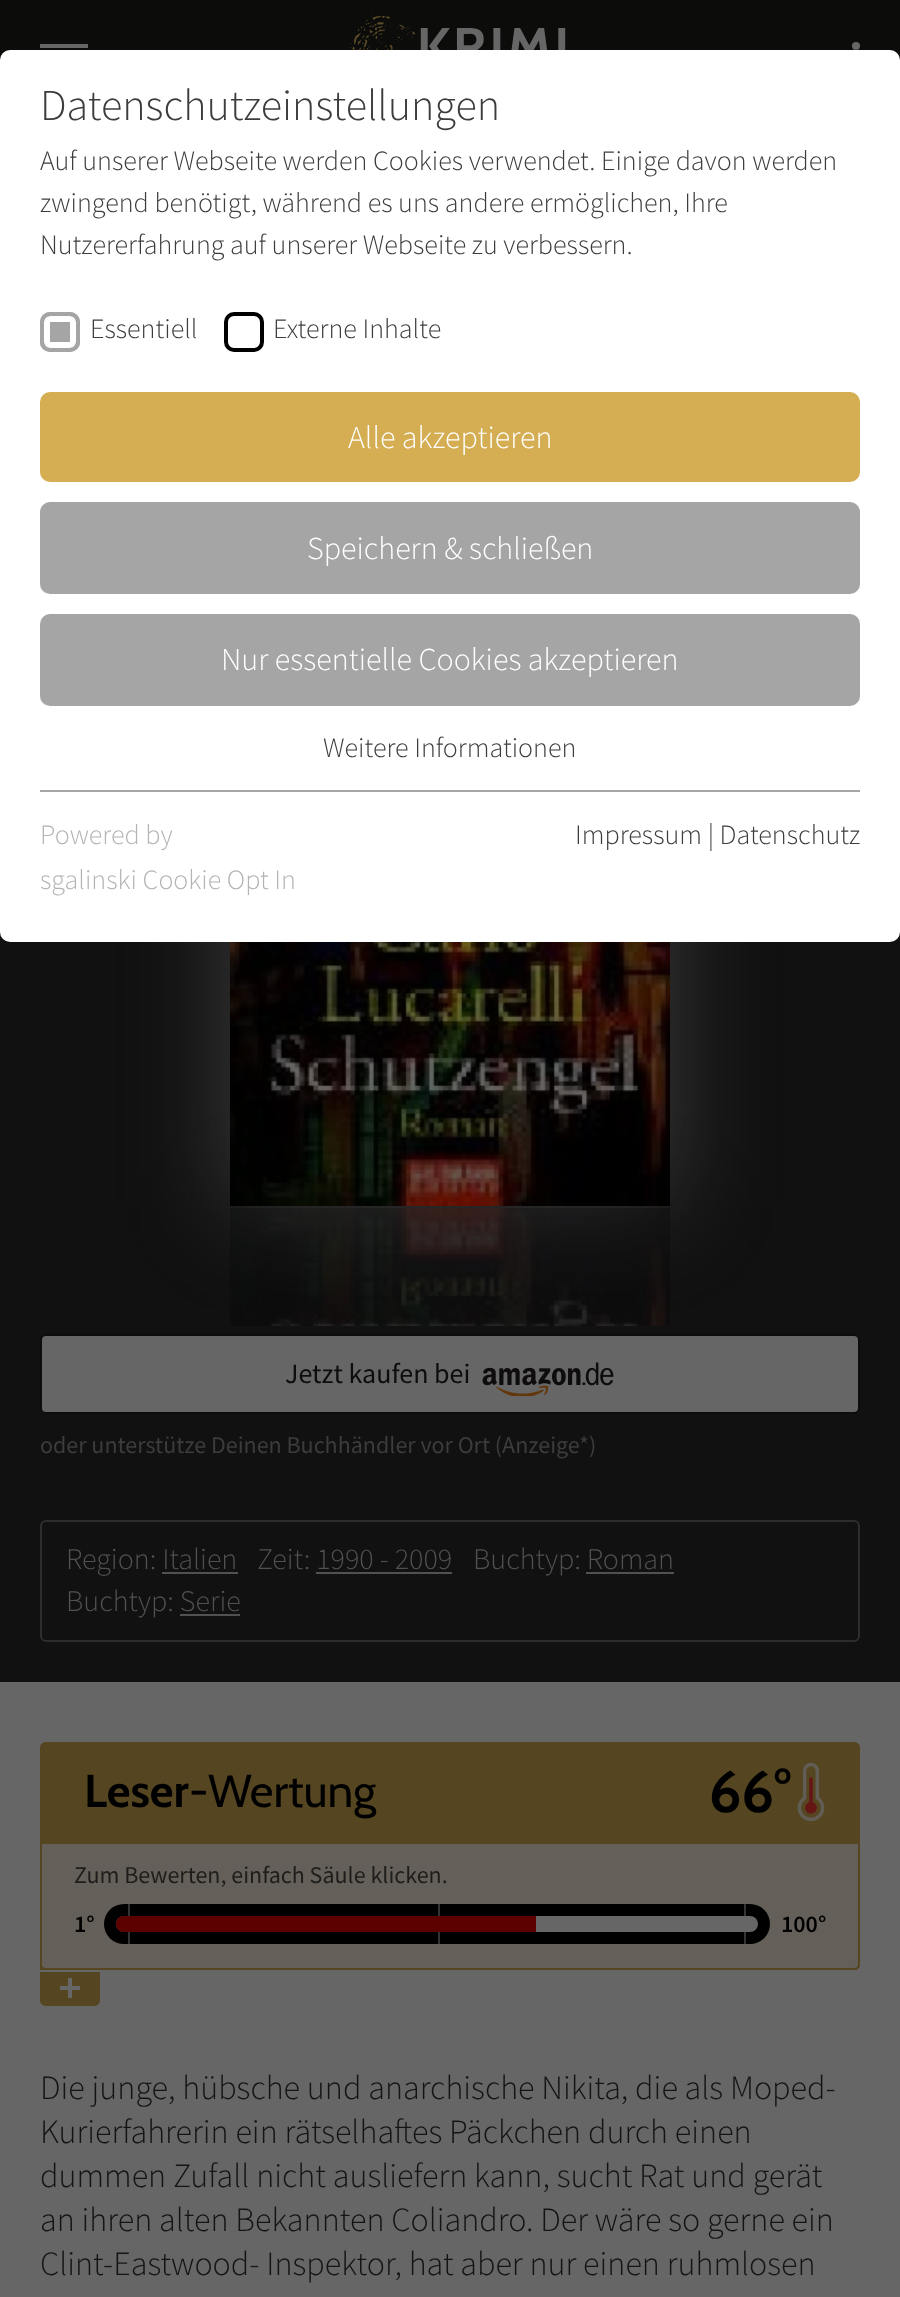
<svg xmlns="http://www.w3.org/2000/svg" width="900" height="2297">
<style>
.a{font:300 44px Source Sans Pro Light;fill:#3c3c3c}
.b{font:300 28px Source Sans Pro Light;fill:#3c3c3c}
.c{font:300 32px Source Sans Pro Light;fill:#fff}
.d{font:300 28px Source Sans Pro Light;fill:#b4b4b4}
.e{font:28px Source Sans Pro;fill:#0e0c0d}
.f{font:24px Source Sans Pro;fill:#3c3c3c}
.g{font:300 30px Source Sans Pro Light;fill:#515151}
.h{font:bold 46px Cabin;fill:#000}
.i{font:46px Cabin;fill:#000}
.j{font:bold 58px Cabin;fill:#000}
.k{font:24px Source Sans Pro;fill:#1e1d1b}
.l{font:600 24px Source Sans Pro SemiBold;fill:#000}
.m{font:300 34px Source Sans Pro Light;fill:#141414}
</style>
<rect width="100%" height="100%" fill="#666"/>
<path fill="#0c0c0b" d="M0 0h900v60H0z"/>
<path fill="#111112" d="M0 932h900v750H0z"/>
<rect fill="#666" stroke="#0e0c0d" stroke-width="2" x="41" y="1335" width="818" height="78" rx="5"/>
<path fill="#66666680" filter="blur(50px)" d="M230 508h440v698H230z"/>
<rect fill="#fff" y="50" width="900" height="892" rx="10"/>
<rect fill="#a5a5a5" x="40" y="312" width="40" height="40" rx="10"/>
<rect fill="none" stroke="#fff" stroke-width="6" x="47" y="319" width="26" height="26" rx="3"/>
<rect fill="none" stroke="#a5a5a5" stroke-width="4" x="42" y="314" width="36" height="36" rx="8"/>
<rect fill="none" stroke="#000" stroke-width="4" x="226" y="314" width="36" height="36" rx="8"/>
<rect fill="#d5ad52" x="40" y="392" width="820" height="90" rx="10"/>
<rect fill="#a5a5a5" x="40" y="502" width="820" height="92" rx="10"/>
<rect fill="#a5a5a5" x="40" y="614" width="820" height="92" rx="10"/>
<path fill="#a5a5a5" d="M40 790h820v2H40z"/>
<image href="1.png" x="350" y="15" width="216" height="35"/>
<path fill="#666" d="M40 44h48v4H40z"/>
<circle fill="#666" cx="856" cy="46" r="4"/>
<image href="2.png" x="230" y="942" width="440" height="264"/>
<image href="3.png" x="230" y="1208" width="440" height="118"/>
<image href="4.png" x="482" y="1362" width="132" height="34"/>
<rect fill="none" stroke="#2d2d2d" stroke-width="2" x="41" y="1521" width="818" height="120" rx="5"/>
<path fill="#515151" d="M162 1572h76v2H162z"/>
<path fill="#515151" d="M316 1572h136v2H316z"/>
<path fill="#515151" d="M586 1572h88v2H586z"/>
<path fill="#515151" d="M180 1614h60v2H180z"/>
<path fill="#554521" d="M46 1742h808c3.5 0 6 2.5 6 6v216c0 3.5-2.5 6-6 6h-814v-222c0-3.5 2.5-6 6-6z"/>
<image href="5.png" x="797" y="1762" width="28" height="60"/>
<path fill="#646059" stroke="#554521" stroke-width="2" d="M41 1843h818v121c0 3-2 5-5 5h-808c-3 0-5-2-5-5z"/>
<rect fill="#000" x="104" y="1904" width="666" height="40" rx="20"/>
<path fill="#333" d="M128 1904h2v40H128z"/>
<path fill="#333" d="M744 1904h2v40H744z"/>
<path fill="#333" d="M438 1904h2v40H438z"/>
<rect fill="#666" x="116" y="1916" width="642" height="16" rx="8"/>
<path fill="#5c0000" d="M124 1916h412v16h-412c-4.5 0-8-3.5-8-8c0-4.5 3.5-8 8-8z"/>
<path fill="#554521" d="M40 1972h60v28c0 3.5-2.5 6-6 6h-48c-3.5 0-6-2.5-6-6z"/>
<path fill="#666" d="M68 1978h4v20H68z"/>
<path fill="#666" d="M60 1986h20v4H60z"/>
<text class="a" x="40" y="120">Datenschutzeinstellungen</text>
<text class="b" x="40" y="170">Auf unserer Webseite werden Cookies verwendet. Einige davon werden</text>
<text class="b" x="40" y="212">zwingend benötigt, während es uns andere ermöglichen, Ihre</text>
<text class="b" x="40" y="254">Nutzererfahrung auf unserer Webseite zu verbessern.</text>
<text class="b" x="90" y="338">Essentiell</text>
<text class="b" x="273" y="338">Externe Inhalte</text>
<text class="c" x="348" y="448">Alle akzeptieren</text>
<text class="c" x="307" y="559">Speichern &amp; schließen</text>
<text class="c" x="221" y="670">Nur essentielle Cookies akzeptieren</text>
<text class="b" x="323" y="757">Weitere Informationen</text>
<text class="d" x="40" y="844">Powered by</text>
<text class="d" x="40" y="889">sgalinski Cookie Opt In</text>
<text class="b" x="575" y="844">Impressum | Datenschutz</text>
<text class="e" x="285" y="1383">Jetzt kaufen bei</text>
<text class="f" x="40" y="1453">oder unterstütze Deinen Buchhändler vor Ort (Anzeige*)</text>
<text class="g" x="66" y="1569">Region: Italien</text>
<text class="g" x="257" y="1569">Zeit: 1990 - 2009</text>
<text class="g" x="473" y="1569">Buchtyp: Roman</text>
<text class="g" x="66" y="1611">Buchtyp: Serie</text>
<text class="h" x="84" y="1807">Leser</text>
<text class="i" x="189" y="1807">-Wertung</text>
<text class="j" x="709" y="1812">66°</text>
<text class="k" x="74" y="1883">Zum Bewerten, einfach Säule klicken.</text>
<text class="l" x="74" y="1932">1°</text>
<text class="l" x="781" y="1932">100°</text>
<text class="m" x="40" y="2099">Die junge, hübsche und anarchische Nikita, die als Moped-</text>
<text class="m" x="40" y="2143">Kurierfahrerin ein rätselhaftes Päckchen durch einen</text>
<text class="m" x="40" y="2187">dummen Zufall nicht ausliefern kann, sucht Rat und gerät</text>
<text class="m" x="40" y="2231">an ihren alten Bekannten Coliandro. Der wäre so gerne ein</text>
<text class="m" x="40" y="2275">Clint-Eastwood- Inspektor, hat aber nur einen ruhmlosen</text>
</svg>
